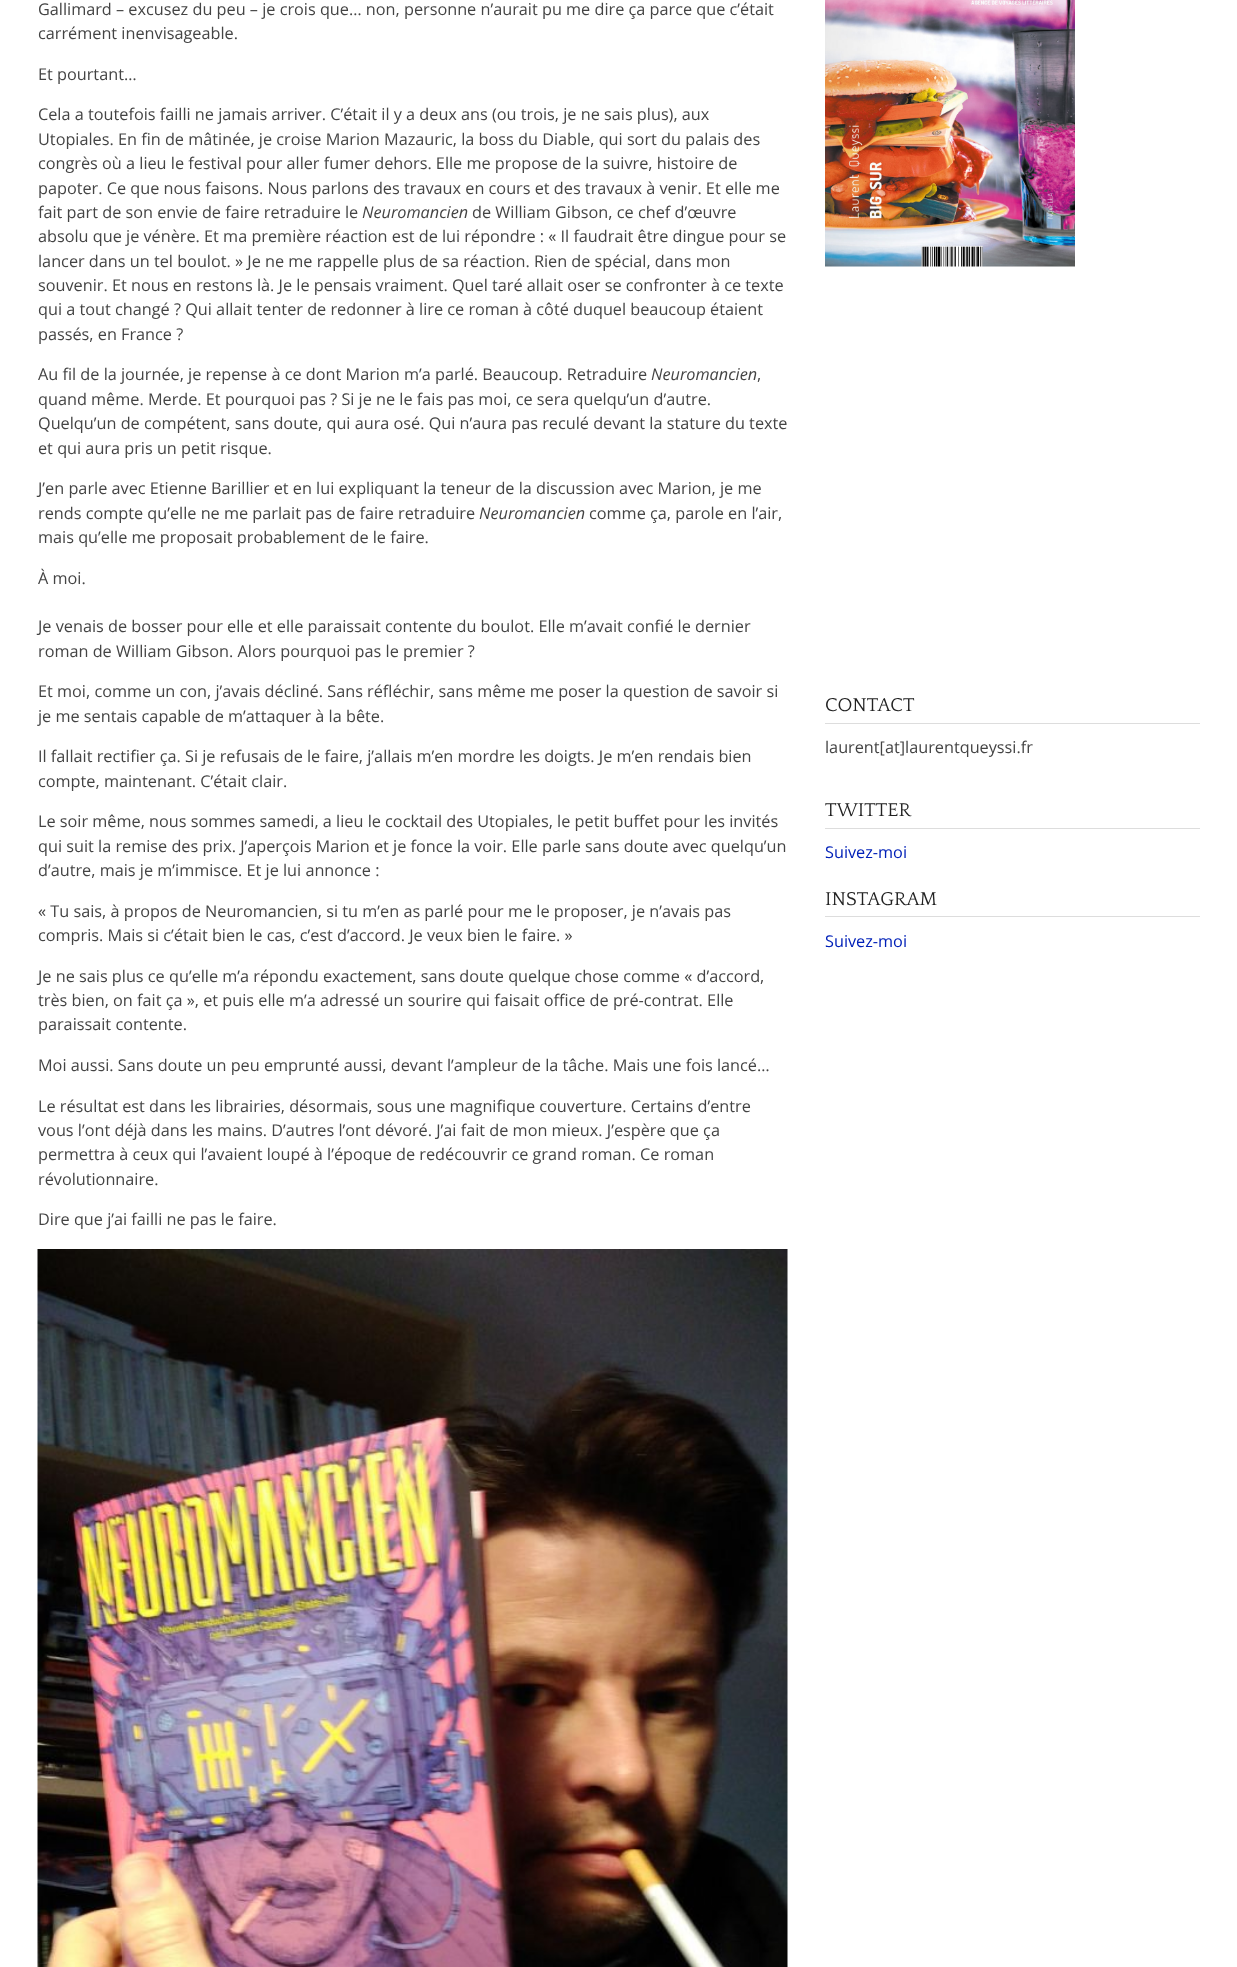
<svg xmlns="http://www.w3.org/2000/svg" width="1237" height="1967">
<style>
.a{font:16.25px Open Sans;fill:#444}
.b{font:italic 16.25px Open Sans;fill:#444}
.c{font:19.5px Quattrocento;fill:#222}
.d{font:16.25px Open Sans;fill:#0020b8}
</style>
<rect width="100%" height="100%" fill="#fff"/>
<image href="1.png" x="37" y="1249" width="751" height="718"/>
<image href="2.png" x="825" y="0" width="250" height="267"/>
<path fill="#ddd" d="M825 723h375v1H825z"/>
<path fill="#ddd" d="M825 828h375v1H825z"/>
<path fill="#ddd" d="M825 916h375v1H825z"/>
<text class="a" x="38" y="15">Gallimard – excusez du peu – je crois que… non, personne n’aurait pu me dire ça parce que c’était</text>
<text class="a" x="38" y="39">carrément inenvisageable.</text>
<text class="a" x="38" y="80">Et pourtant…</text>
<text class="a" x="38" y="120">Cela a toutefois failli ne jamais arriver. C’était il y a deux ans (ou trois, je ne sais plus), aux</text>
<text class="a" x="38" y="145">Utopiales. En fin de mâtinée, je croise Marion Mazauric, la boss du Diable, qui sort du palais des</text>
<text class="a" x="38" y="169">congrès où a lieu le festival pour aller fumer dehors. Elle me propose de la suivre, histoire de</text>
<text class="a" x="38" y="194">papoter. Ce que nous faisons. Nous parlons des travaux en cours et des travaux à venir. Et elle me</text>
<text class="a" x="38" y="218">fait part de son envie de faire retraduire le</text>
<text class="b" x="362" y="218">Neuromancien</text>
<text class="a" x="472" y="218">de William Gibson, ce chef d’œuvre</text>
<text class="a" x="38" y="242">absolu que je vénère. Et ma première réaction est de lui répondre : « Il faudrait être dingue pour se</text>
<text class="a" x="38" y="267">lancer dans un tel boulot. » Je ne me rappelle plus de sa réaction. Rien de spécial, dans mon</text>
<text class="a" x="38" y="291">souvenir. Et nous en restons là. Je le pensais vraiment. Quel taré allait oser se confronter à ce texte</text>
<text class="a" x="38" y="315">qui a tout changé ? Qui allait tenter de redonner à lire ce roman à côté duquel beaucoup étaient</text>
<text class="a" x="38" y="340">passés, en France ?</text>
<text class="a" x="38" y="380">Au fil de la journée, je repense à ce dont Marion m’a parlé. Beaucoup. Retraduire</text>
<text class="b" x="651" y="380">Neuromancien</text>
<text class="a" x="757" y="380">,</text>
<text class="a" x="38" y="405">quand même. Merde. Et pourquoi pas ? Si je ne le fais pas moi, ce sera quelqu’un d’autre.</text>
<text class="a" x="38" y="429">Quelqu’un de compétent, sans doute, qui aura osé. Qui n’aura pas reculé devant la stature du texte</text>
<text class="a" x="38" y="454">et qui aura pris un petit risque.</text>
<text class="a" x="38" y="494">J’en parle avec Etienne Barillier et en lui expliquant la teneur de la discussion avec Marion, je me</text>
<text class="a" x="38" y="519">rends compte qu’elle ne me parlait pas de faire retraduire</text>
<text class="b" x="479" y="519">Neuromancien</text>
<text class="a" x="589" y="519">comme ça, parole en l’air,</text>
<text class="a" x="38" y="543">mais qu’elle me proposait probablement de le faire.</text>
<text class="a" x="38" y="584">À moi.</text>
<text class="a" x="38" y="632">Je venais de bosser pour elle et elle paraissait contente du boulot. Elle m’avait confié le dernier</text>
<text class="a" x="38" y="657">roman de William Gibson. Alors pourquoi pas le premier ?</text>
<text class="a" x="38" y="697">Et moi, comme un con, j’avais décliné. Sans réfléchir, sans même me poser la question de savoir si</text>
<text class="a" x="38" y="722">je me sentais capable de m’attaquer à la bête.</text>
<text class="a" x="38" y="762">Il fallait rectifier ça. Si je refusais de le faire, j’allais m’en mordre les doigts. Je m’en rendais bien</text>
<text class="a" x="38" y="787">compte, maintenant. C’était clair.</text>
<text class="a" x="38" y="827">Le soir même, nous sommes samedi, a lieu le cocktail des Utopiales, le petit buffet pour les invités</text>
<text class="a" x="38" y="852">qui suit la remise des prix. J’aperçois Marion et je fonce la voir. Elle parle sans doute avec quelqu’un</text>
<text class="a" x="38" y="876">d’autre, mais je m’immisce. Et je lui annonce :</text>
<text class="a" x="38" y="917">« Tu sais, à propos de Neuromancien, si tu m’en as parlé pour me le proposer, je n’avais pas</text>
<text class="a" x="38" y="941">compris. Mais si c’était bien le cas, c’est d’accord. Je veux bien le faire. »</text>
<text class="a" x="38" y="982">Je ne sais plus ce qu’elle m’a répondu exactement, sans doute quelque chose comme « d’accord,</text>
<text class="a" x="38" y="1006">très bien, on fait ça », et puis elle m’a adressé un sourire qui faisait office de pré-contrat. Elle</text>
<text class="a" x="38" y="1030">paraissait contente.</text>
<text class="a" x="38" y="1071">Moi aussi. Sans doute un peu emprunté aussi, devant l’ampleur de la tâche. Mais une fois lancé…</text>
<text class="a" x="38" y="1112">Le résultat est dans les librairies, désormais, sous une magnifique couverture. Certains d’entre</text>
<text class="a" x="38" y="1136">vous l’ont déjà dans les mains. D’autres l’ont dévoré. J’ai fait de mon mieux. J’espère que ça</text>
<text class="a" x="38" y="1160">permettra à ceux qui l’avaient loupé à l’époque de redécouvrir ce grand roman. Ce roman</text>
<text class="a" x="38" y="1185">révolutionnaire.</text>
<text class="a" x="38" y="1225">Dire que j’ai failli ne pas le faire.</text>
<text class="c" x="825" y="711">CONTACT</text>
<text class="a" x="825" y="753">laurent[at]laurentqueyssi.fr</text>
<text class="c" x="825" y="816">TWITTER</text>
<text class="d" x="825" y="858">Suivez-moi</text>
<text class="c" x="825" y="905">INSTAGRAM</text>
<text class="d" x="825" y="947">Suivez-moi</text>
</svg>
